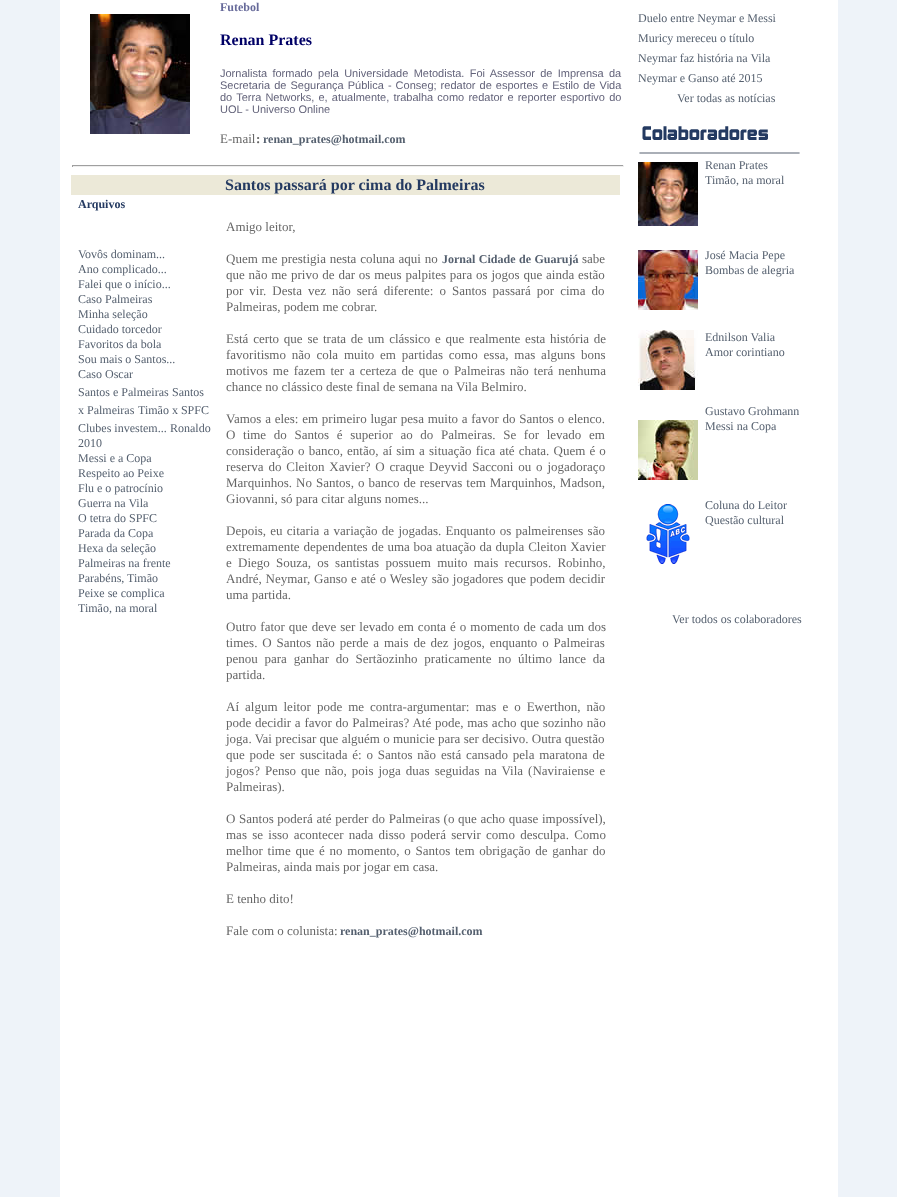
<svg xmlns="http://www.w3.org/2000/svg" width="897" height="1197">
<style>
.a{font:bold 12px Liberation Serif;fill:#666999}
.b{font:bold 16px Liberation Serif;fill:#006}
.c{font:11px Liberation Sans;fill:#63637a}
.d{font:13px Liberation Serif;fill:#666}
.e{font:bold 13px Liberation Serif;fill:#666}
.f{font:bold 12px Liberation Serif;fill:#55606f}
.g{font:bold 16px Liberation Serif;fill:#243a61}
.h{font:bold 12px Liberation Serif;fill:#243a61}
.i{font:12px Liberation Serif;fill:#55606f}
</style>
<rect width="100%" height="100%" fill="#eef3f9"/>
<path fill="#fff" d="M60 0h778v1197H60z"/>
<image href="1.png" x="90" y="14" width="100" height="120"/>
<path fill="#9f9f9f" d="M72 165h552v1H72z"/>
<path fill="#eee" d="M623 165h1v2H623z"/>
<path fill="#eee" d="M72 166h552v1H72z"/>
<path fill="#9f9f9f" d="M72 165h1v2H72z"/>
<path fill="#ece9d8" d="M71 175h549v20H71z"/>
<image href="2.png" x="639" y="126" width="161" height="28"/>
<image href="3.png" x="638" y="162" width="60" height="64"/>
<image href="4.png" x="638" y="250" width="60" height="60"/>
<image href="5.png" x="638" y="330" width="60" height="60"/>
<image href="6.png" x="638" y="420" width="60" height="60"/>
<image href="7.png" x="646" y="504" width="44" height="60"/>
<text class="a" x="220" y="11">Futebol</text>
<text class="b" x="220" y="45">Renan Prates</text>
<text class="c" x="220" y="77" word-spacing="2.25">Jornalista formado pela Universidade Metodista. Foi Assessor de Imprensa da</text>
<text class="c" x="220" y="89" word-spacing="1">Secretaria de Segurança Pública - Conseg; redator de esportes e Estilo de Vida</text>
<text class="c" x="220" y="101" word-spacing="1.1">do Terra Networks, e, atualmente, trabalha como redator e reporter esportivo do</text>
<text class="c" x="220" y="113">UOL - Universo Online</text>
<text class="d" x="220" y="143">E-mail</text>
<text class="e" x="256" y="143">:</text>
<text class="f" x="263" y="143">renan_prates@hotmail.com</text>
<text class="g" x="225" y="190">Santos passará por cima do Palmeiras</text>
<text class="h" x="78" y="208">Arquivos</text>
<text class="i" x="78" y="258">Vovôs dominam...</text>
<text class="i" x="78" y="273">Ano complicado...</text>
<text class="i" x="78" y="288">Falei que o início...</text>
<text class="i" x="78" y="303">Caso Palmeiras</text>
<text class="i" x="78" y="318">Minha seleção</text>
<text class="i" x="78" y="333">Cuidado torcedor</text>
<text class="i" x="78" y="348">Favoritos da bola</text>
<text class="i" x="78" y="363">Sou mais o Santos...</text>
<text class="i" x="78" y="378">Caso Oscar</text>
<text class="i" x="78" y="396">Santos e Palmeiras</text>
<text class="i" x="172" y="396">Santos</text>
<text class="i" x="78" y="414">x Palmeiras</text>
<text class="i" x="138" y="414">Timão x SPFC</text>
<text class="i" x="78" y="432">Clubes investem...</text>
<text class="i" x="170" y="432">Ronaldo</text>
<text class="i" x="78" y="447">2010</text>
<text class="i" x="78" y="462">Messi e a Copa</text>
<text class="i" x="78" y="477">Respeito ao Peixe</text>
<text class="i" x="78" y="492">Flu e o patrocínio</text>
<text class="i" x="78" y="507">Guerra na Vila</text>
<text class="i" x="78" y="522">O tetra do SPFC</text>
<text class="i" x="78" y="537">Parada da Copa</text>
<text class="i" x="78" y="552">Hexa da seleção</text>
<text class="i" x="78" y="567">Palmeiras na frente</text>
<text class="i" x="78" y="582">Parabéns, Timão</text>
<text class="i" x="78" y="597">Peixe se complica</text>
<text class="i" x="78" y="612">Timão, na moral</text>
<text class="d" x="226" y="231">Amigo leitor,</text>
<text class="d" x="226" y="263" word-spacing="0.5">Quem me prestigia nesta coluna aqui no</text>
<text class="f" x="442" y="263" word-spacing="0.5">Jornal Cidade de Guarujá</text>
<text class="d" x="582" y="263">sabe</text>
<text class="d" x="226" y="279" word-spacing="0.6">que não me privo de dar os meus palpites para os jogos que ainda estão</text>
<text class="d" x="226" y="295" word-spacing="2.75">por vir. Desta vez não será diferente: o Santos passará por cima do</text>
<text class="d" x="226" y="311">Palmeiras, podem me cobrar.</text>
<text class="d" x="226" y="343" word-spacing="1.5">Está certo que se trata de um clássico e que realmente esta história de</text>
<text class="d" x="226" y="359" word-spacing="2.6">favoritismo não cola muito em partidas como essa, mas alguns bons</text>
<text class="d" x="226" y="375" word-spacing="1.7">motivos me fazem ter a certeza de que o Palmeiras não terá nenhuma</text>
<text class="d" x="226" y="391">chance no clássico deste final de semana na Vila Belmiro.</text>
<text class="d" x="226" y="423" word-spacing="0.5">Vamos a eles: em primeiro lugar pesa muito a favor do Santos o elenco.</text>
<text class="d" x="226" y="439" word-spacing="4.4">O time do Santos é superior ao do Palmeiras. Se for levado em</text>
<text class="d" x="226" y="455" word-spacing="0.9">consideração o banco, então, aí sim a situação fica até chata. Quem é o</text>
<text class="d" x="226" y="471" word-spacing="1.6">reserva do Cleiton Xavier? O craque Deyvid Sacconi ou o jogadoraço</text>
<text class="d" x="226" y="487" word-spacing="0.75">Marquinhos. No Santos, o banco de reservas tem Marquinhos, Madson,</text>
<text class="d" x="226" y="503">Giovanni, só para citar alguns nomes...</text>
<text class="d" x="226" y="535" word-spacing="1">Depois, eu citaria a variação de jogadas. Enquanto os palmeirenses são</text>
<text class="d" x="226" y="551" word-spacing="0.5">extremamente dependentes de uma boa atuação da dupla Cleiton Xavier</text>
<text class="d" x="226" y="567" word-spacing="3">e Diego Souza, os santistas possuem muito mais recursos. Robinho,</text>
<text class="d" x="226" y="583" word-spacing="0.6">André, Neymar, Ganso e até o Wesley são jogadores que podem decidir</text>
<text class="d" x="226" y="599">uma partida.</text>
<text class="d" x="226" y="631" word-spacing="0.75">Outro fator que deve ser levado em conta é o momento de cada um dos</text>
<text class="d" x="226" y="647" word-spacing="1.6">times. O Santos não perde a mais de dez jogos, enquanto o Palmeiras</text>
<text class="d" x="226" y="663" word-spacing="3.5">penou para ganhar do Sertãozinho praticamente no último lance da</text>
<text class="d" x="226" y="679">partida.</text>
<text class="d" x="226" y="711" word-spacing="2.75">Aí algum leitor pode me contra-argumentar: mas e o Ewerthon, não</text>
<text class="d" x="226" y="727" word-spacing="0.5">pode decidir a favor do Palmeiras? Até pode, mas acho que sozinho não</text>
<text class="d" x="226" y="743">joga. Vai precisar que alguém o municie para ser decisivo. Outra questão</text>
<text class="d" x="226" y="759" word-spacing="1.6">que pode ser suscitada é: o Santos não está cansado pela maratona de</text>
<text class="d" x="226" y="775" word-spacing="1.75">jogos? Penso que não, pois joga duas seguidas na Vila (Naviraiense e</text>
<text class="d" x="226" y="791">Palmeiras).</text>
<text class="d" x="226" y="823" word-spacing="0.4">O Santos poderá até perder do Palmeiras (o que acho quase impossível),</text>
<text class="d" x="226" y="839" word-spacing="2">mas se isso acontecer nada disso poderá servir como desculpa. Como</text>
<text class="d" x="226" y="855" word-spacing="1.5">melhor time que é no momento, o Santos tem obrigação de ganhar do</text>
<text class="d" x="226" y="871">Palmeiras, ainda mais por jogar em casa.</text>
<text class="d" x="226" y="903">E tenho dito!</text>
<text class="d" x="226" y="935">Fale com o colunista:</text>
<text class="f" x="340" y="935">renan_prates@hotmail.com</text>
<text class="i" x="638" y="22">Duelo entre Neymar e Messi</text>
<text class="i" x="638" y="42">Muricy mereceu o título</text>
<text class="i" x="638" y="62">Neymar faz história na Vila</text>
<text class="i" x="638" y="82">Neymar e Ganso até 2015</text>
<text class="i" x="677" y="102">Ver todas as notícias</text>
<text class="i" x="705" y="169">Renan Prates</text>
<text class="i" x="705" y="184">Timão, na moral</text>
<text class="i" x="705" y="259">José Macia Pepe</text>
<text class="i" x="705" y="274">Bombas de alegria</text>
<text class="i" x="705" y="341">Ednilson Valia</text>
<text class="i" x="705" y="356">Amor corintiano</text>
<text class="i" x="705" y="415">Gustavo Grohmann</text>
<text class="i" x="705" y="430">Messi na Copa</text>
<text class="i" x="705" y="509">Coluna do Leitor</text>
<text class="i" x="705" y="524">Questão cultural</text>
<text class="i" x="672" y="623">Ver todos os colaboradores</text>
</svg>
